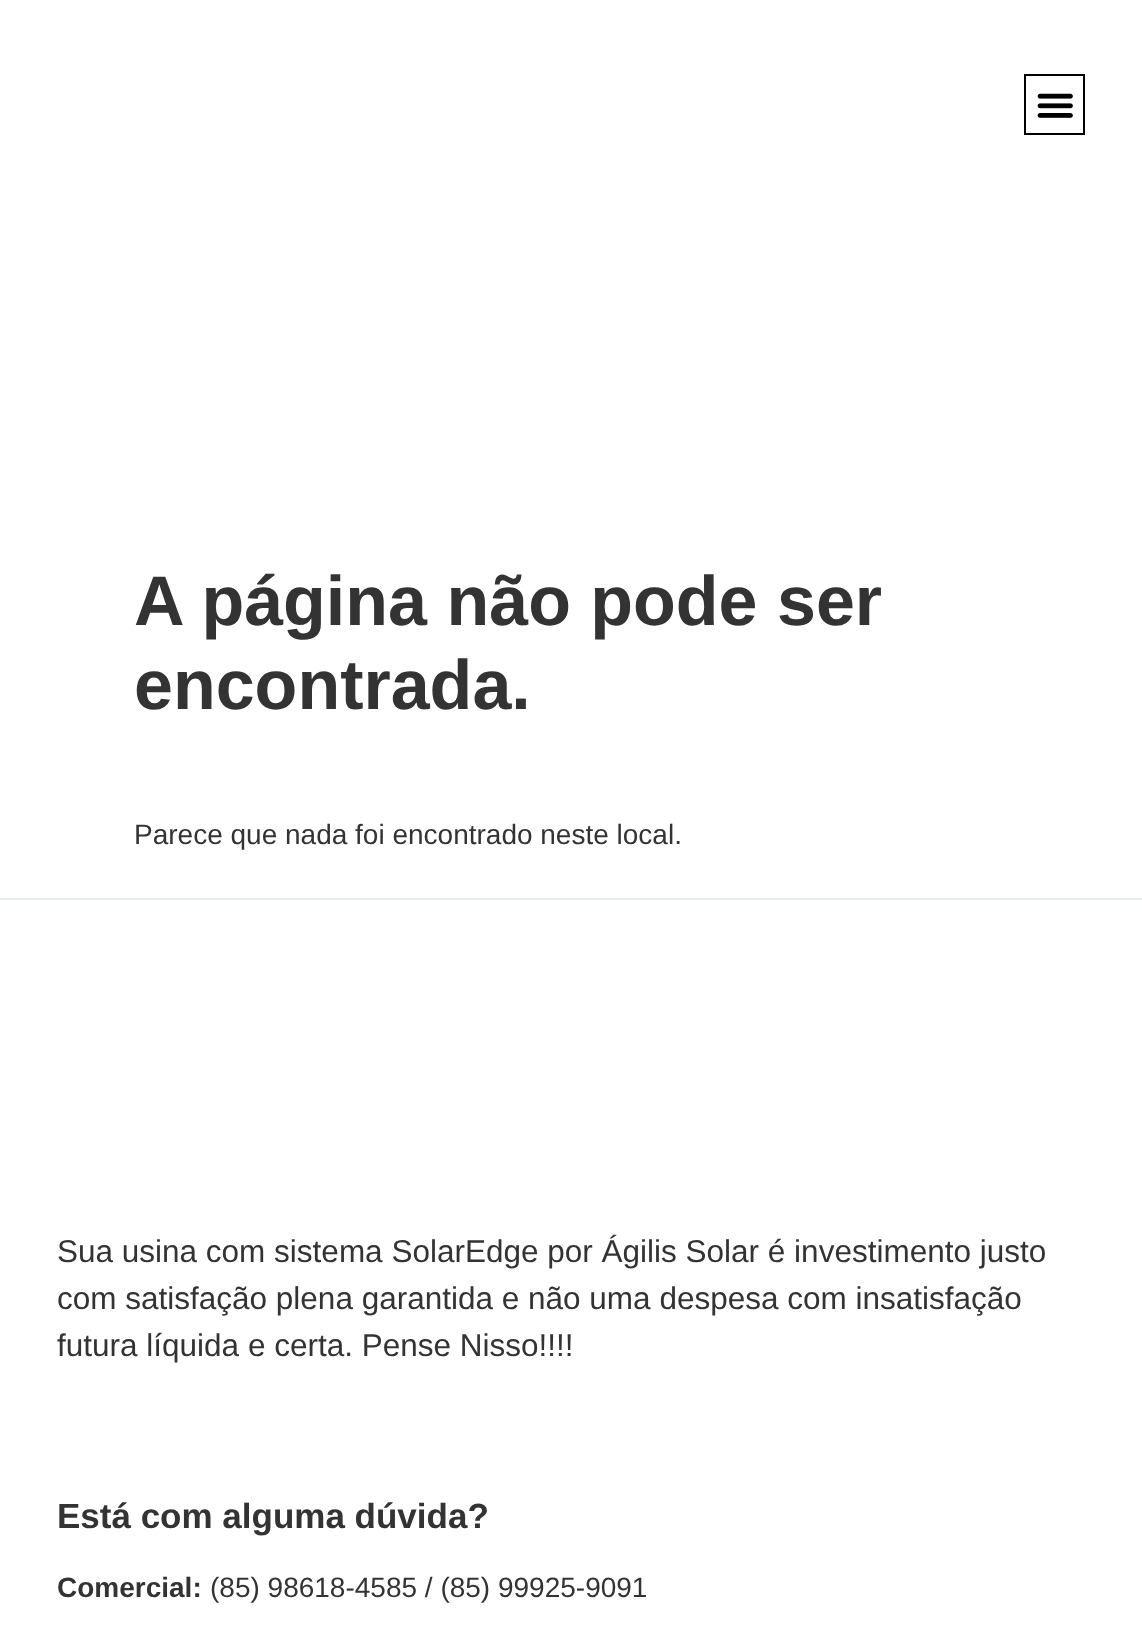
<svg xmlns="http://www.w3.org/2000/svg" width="1142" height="1637">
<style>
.a{font:bold 70px Liberation Sans;fill:#333}
.b{font:28px Liberation Sans;fill:#333}
.c{font:31.5px Liberation Sans;fill:#333}
.d{font:bold 35px Liberation Sans;fill:#333}
.e{font:bold 28px Liberation Sans;fill:#333}
</style>
<rect width="100%" height="100%" fill="#fff"/>
<path fill="none" stroke="#000" stroke-width="2" d="M1025 75h59v59H1025z"/>
<image href="1.png" x="1037" y="93" width="36" height="25"/>
<path fill="#e9ecef" d="M0 898h1142v2H0z"/>
<text class="a" x="134" y="625">A página não pode ser</text>
<text class="a" x="134" y="709">encontrada.</text>
<text class="b" x="134" y="844">Parece que nada foi encontrado neste local.</text>
<text class="c" x="57" y="1262">Sua usina com sistema SolarEdge por Ágilis Solar é investimento justo</text>
<text class="c" x="57" y="1309">com satisfação plena garantida e não uma despesa com insatisfação</text>
<text class="c" x="57" y="1356">futura líquida e certa. Pense Nisso!!!!</text>
<text class="d" x="57" y="1528">Está com alguma dúvida?</text>
<text class="e" x="57" y="1597">Comercial:</text>
<text class="b" x="210" y="1597">(85) 98618-4585 / (85) 99925-9091</text>
</svg>
